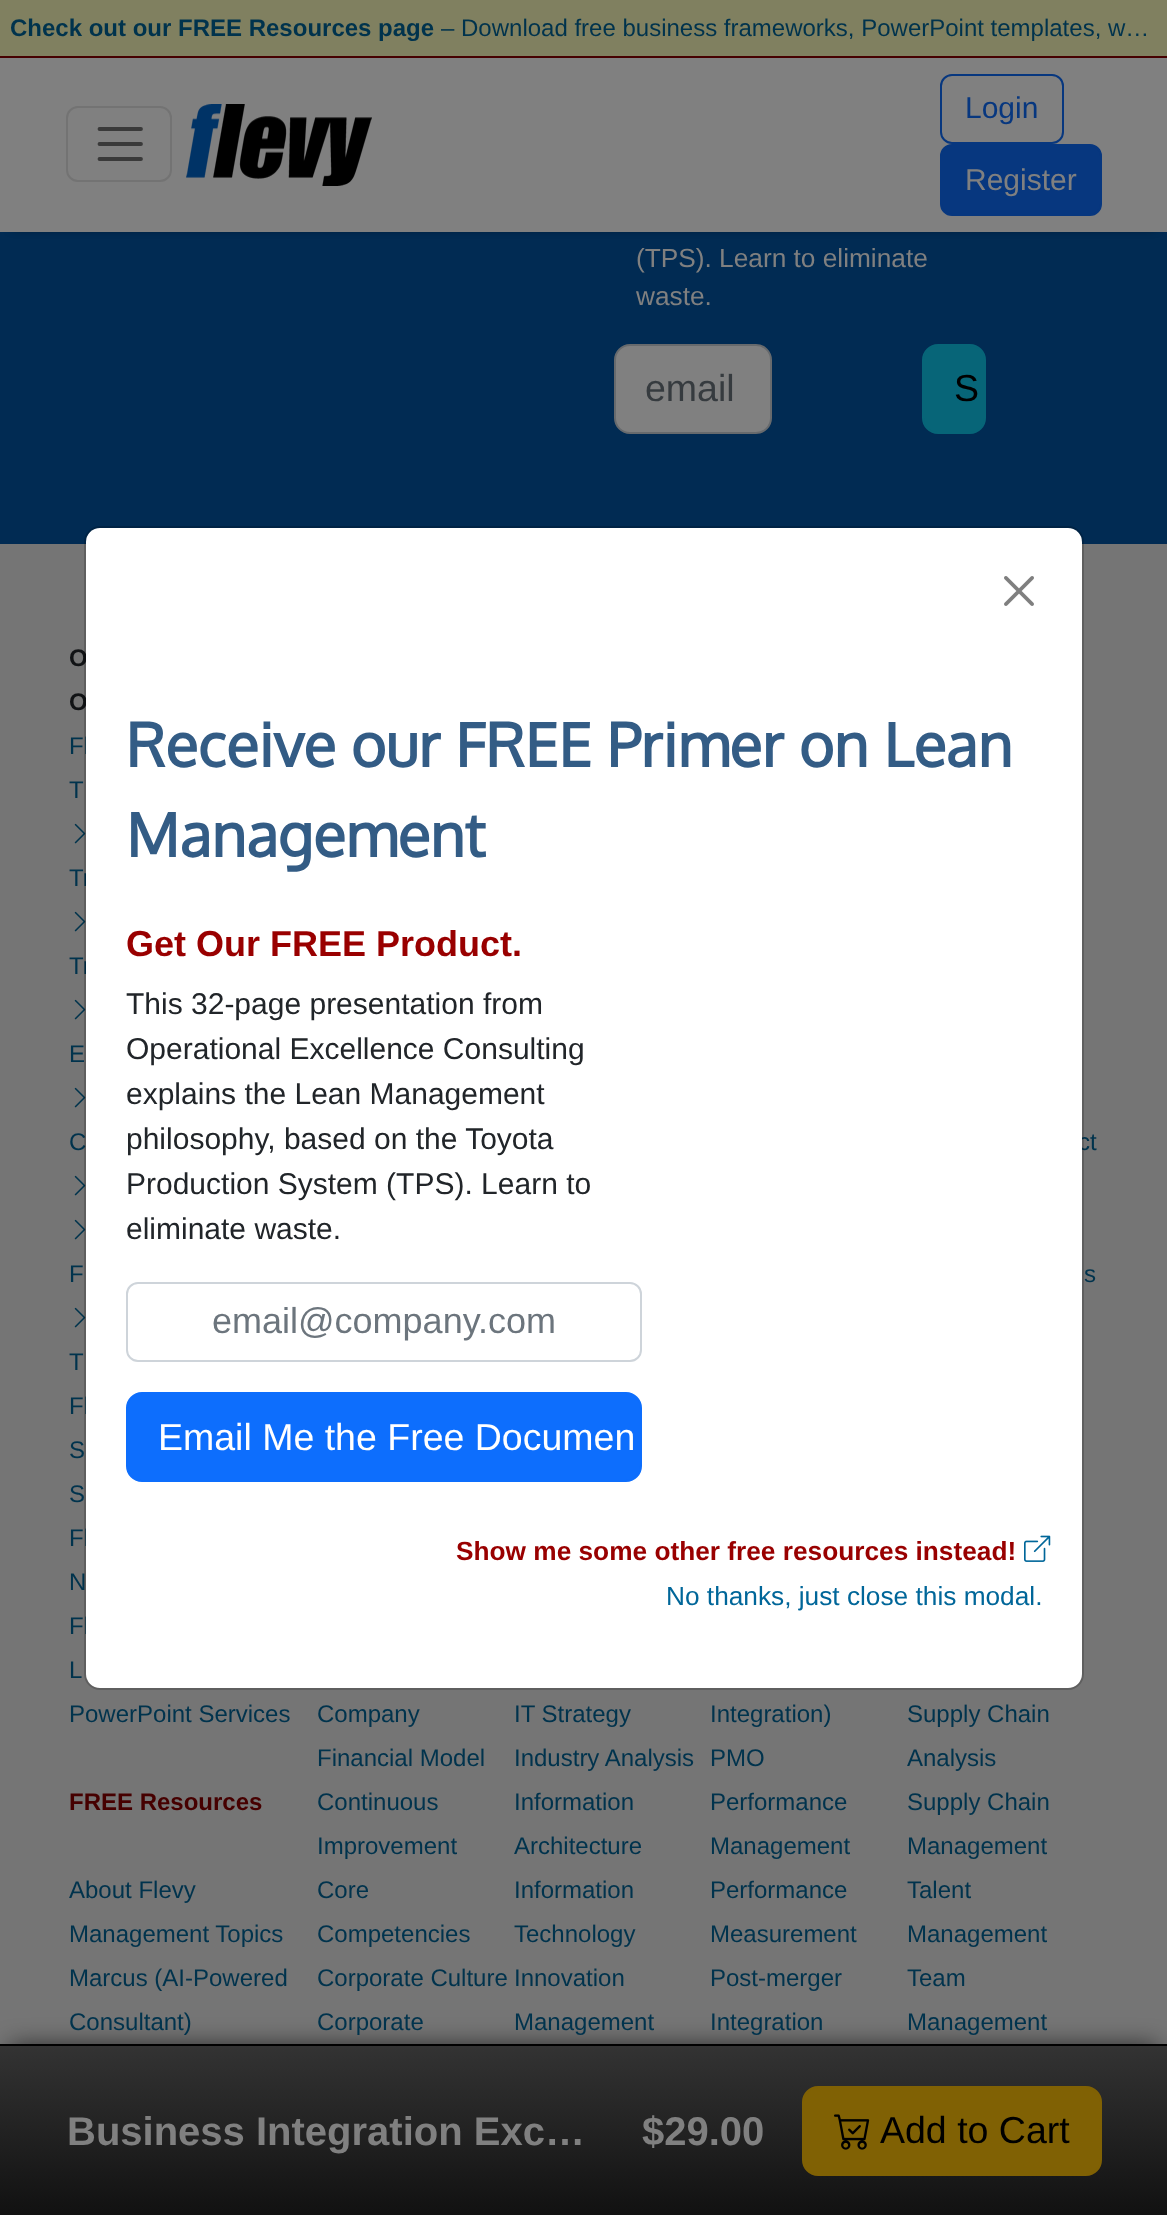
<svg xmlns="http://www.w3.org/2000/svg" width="1167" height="2215">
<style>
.a{font:bold 24px Liberation Sans;fill:#00334d}
.b{font:24px Liberation Sans;fill:#00334d}
.c{font:30px Liberation Sans;fill:#07377f}
.d{font:30px Liberation Sans;fill:#808080}
.e{font:26.25px Liberation Sans;fill:#808080}
.f{font:37.5px Liberation Sans;fill:#363b3f}
.g{font:37.5px Liberation Sans;fill:#000}
.h{font:bold 24px Liberation Sans;fill:#111315}
.i{font:bold 24px Liberation Sans;fill:#460000}
.j{font:bold 60px Oxygen;fill:#335c85}
.k{font:bold 36px Liberation Sans;fill:#900}
.l{font:30px Liberation Sans;fill:#212529}
.m{font:36px Liberation Sans;fill:#6c757d}
.n{font:37.5px Liberation Sans;fill:#fff}
.o{font:bold 26.25px Liberation Sans;fill:#900}
.p{font:26.25px Liberation Sans;fill:#069}
.q{font:bold 40px Liberation Sans;fill:#808080}
</style>
<defs>
<linearGradient id="g1" gradientUnits="userSpaceOnUse" x1="584" y1="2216" x2="584" y2="2046"><stop offset="0" stop-color="#111"/><stop offset="1" stop-color="#333"/></linearGradient>
</defs>
<rect width="100%" height="100%" fill="#757575"/>
<path fill="#808060" d="M0 0h1167v56H0z"/>
<path fill="#460000" d="M0 56h1167v2H0z"/>
<path fill="#012b53" d="M0 232h1167v312H0z"/>
<path fill="#00000099" filter="blur(5px)" d="M12 78h1144v150H12z"/>
<path fill="#808080" d="M0 58h1167v174H0z"/>
<rect fill="none" stroke="#737373" stroke-width="2" x="67" y="107" width="104" height="74" rx="11"/>
<path fill="none" stroke="#3a3a3a" stroke-width="3.8" stroke-linecap="round" d="M99.5 129h41.5m-41.5 15h41.5m-41.5 15h41.5"/>
<image href="1.png" x="186" y="104" width="186" height="82"/>
<rect fill="none" stroke="#07377f" stroke-width="2" x="941" y="75" width="122" height="68" rx="11"/>
<rect fill="#07377f" stroke="#07377f" stroke-width="2" x="941" y="145" width="160" height="70" rx="11"/>
<rect fill="#808080" stroke="#676a6d" stroke-width="2" x="615" y="345" width="156" height="88" rx="15"/>
<rect fill="#076578" stroke="#076578" stroke-width="2" x="923" y="345" width="62" height="88" rx="15"/>
<image href="2.png" x="74" y="823" width="12" height="21"/>
<image href="2.png" x="74" y="911" width="12" height="21"/>
<image href="2.png" x="74" y="999" width="12" height="21"/>
<image href="2.png" x="74" y="1087" width="12" height="21"/>
<image href="2.png" x="74" y="1175" width="12" height="21"/>
<image href="2.png" x="74" y="1219" width="12" height="21"/>
<image href="2.png" x="74" y="1307" width="12" height="21"/>
<path fill="#000000b3" filter="blur(12px)" d="M10 2046h1148v152H10z"/>
<path fill="url(#g1)" d="M0 2046h1167v169H0z"/>
<path fill="#000" d="M0 2044h1167v2H0z"/>
<rect fill="#806104" stroke="#806104" stroke-width="2" x="803" y="2087" width="298" height="88" rx="15"/>
<image href="5.png" x="834" y="2114" width="36" height="36"/>
<text class="a" x="10" y="36">Check out our FREE Resources page</text>
<text class="b" x="441" y="36">– Download free business frameworks, PowerPoint templates, w…</text>
<text class="c" x="965" y="118">Login</text>
<text class="d" x="965" y="190">Register</text>
<text class="e" x="636" y="267">(TPS). Learn to eliminate</text>
<text class="e" x="636" y="305">waste.</text>
<text class="f" x="645" y="401">email</text>
<text class="g" x="954" y="401">S</text>
<text class="h" x="69" y="666">O</text>
<text class="h" x="69" y="710">O</text>
<text class="b" x="69" y="754">Fl</text>
<text class="b" x="69" y="798">T</text>
<text class="b" x="69" y="886">Tr</text>
<text class="b" x="69" y="974">Tr</text>
<text class="b" x="69" y="1062">E</text>
<text class="b" x="69" y="1150">C</text>
<text class="b" x="69" y="1282">F</text>
<text class="b" x="69" y="1370">T</text>
<text class="b" x="69" y="1414">Fl</text>
<text class="b" x="69" y="1458">S</text>
<text class="b" x="69" y="1502">S</text>
<text class="b" x="69" y="1546">Fl</text>
<text class="b" x="69" y="1590">N</text>
<text class="b" x="69" y="1634">Fl</text>
<text class="b" x="69" y="1678">L</text>
<text class="b" x="69" y="1722">PowerPoint Services</text>
<text class="i" x="69" y="1810">FREE Resources</text>
<text class="b" x="69" y="1898">About Flevy</text>
<text class="b" x="69" y="1942">Management Topics</text>
<text class="b" x="69" y="1986">Marcus (AI-Powered</text>
<text class="b" x="69" y="2030">Consultant)</text>
<text class="b" x="317" y="1722">Company</text>
<text class="b" x="317" y="1766">Financial Model</text>
<text class="b" x="317" y="1810">Continuous</text>
<text class="b" x="317" y="1854">Improvement</text>
<text class="b" x="317" y="1898">Core</text>
<text class="b" x="317" y="1942">Competencies</text>
<text class="b" x="317" y="1986">Corporate Culture</text>
<text class="b" x="317" y="2030">Corporate</text>
<text class="b" x="514" y="1722">IT Strategy</text>
<text class="b" x="514" y="1766">Industry Analysis</text>
<text class="b" x="514" y="1810">Information</text>
<text class="b" x="514" y="1854">Architecture</text>
<text class="b" x="514" y="1898">Information</text>
<text class="b" x="514" y="1942">Technology</text>
<text class="b" x="514" y="1986">Innovation</text>
<text class="b" x="514" y="2030">Management</text>
<text class="b" x="710" y="1722">Integration)</text>
<text class="b" x="710" y="1766">PMO</text>
<text class="b" x="710" y="1810">Performance</text>
<text class="b" x="710" y="1854">Management</text>
<text class="b" x="710" y="1898">Performance</text>
<text class="b" x="710" y="1942">Measurement</text>
<text class="b" x="710" y="1986">Post-merger</text>
<text class="b" x="710" y="2030">Integration</text>
<text class="b" x="1078" y="1150">ct</text>
<text class="b" x="1084" y="1282">s</text>
<text class="b" x="907" y="1722">Supply Chain</text>
<text class="b" x="907" y="1766">Analysis</text>
<text class="b" x="907" y="1810">Supply Chain</text>
<text class="b" x="907" y="1854">Management</text>
<text class="b" x="907" y="1898">Talent</text>
<text class="b" x="907" y="1942">Management</text>
<text class="b" x="907" y="1986">Team</text>
<text class="b" x="907" y="2030">Management</text>
<rect fill="#fff" x="86" y="528" width="996" height="1160" rx="14"/>
<rect fill="none" stroke="#0000002e" stroke-width="2" x="85" y="527" width="998" height="1162" rx="15"/>
<image href="3.png" x="1004" y="576" width="30" height="30"/>
<text class="j" x="126" y="767">Receive our FREE Primer on Lean</text>
<text class="j" x="126" y="857">Management</text>
<text class="k" x="126" y="956">Get Our FREE Product.</text>
<text class="l" x="126" y="1014">This 32-page presentation from</text>
<text class="l" x="126" y="1059">Operational Excellence Consulting</text>
<text class="l" x="126" y="1104">explains the Lean Management</text>
<text class="l" x="126" y="1149">philosophy, based on the Toyota</text>
<text class="l" x="126" y="1194">Production System (TPS). Learn to</text>
<text class="l" x="126" y="1239">eliminate waste.</text>
<rect fill="none" stroke="#ced4da" stroke-width="2" x="127" y="1283" width="514" height="78" rx="11"/>
<text class="m" x="212" y="1333">email@company.com</text>
<rect fill="#0d6efd" stroke="#0d6efd" stroke-width="2" x="127" y="1393" width="514" height="88" rx="15"/>
<text class="n" x="158" y="1450">Email Me the Free Documen</text>
<text class="o" x="456" y="1560">Show me some other free resources instead!</text>
<image href="4.png" x="1024" y="1535" width="27" height="27"/>
<text class="p" x="666" y="1605">No thanks, just close this modal.</text>
<text class="q" x="67" y="2145">Business Integration Exc…</text>
<text class="q" x="642" y="2145">$29.00</text>
<text class="g" x="880" y="2143">Add to Cart</text>
</svg>
